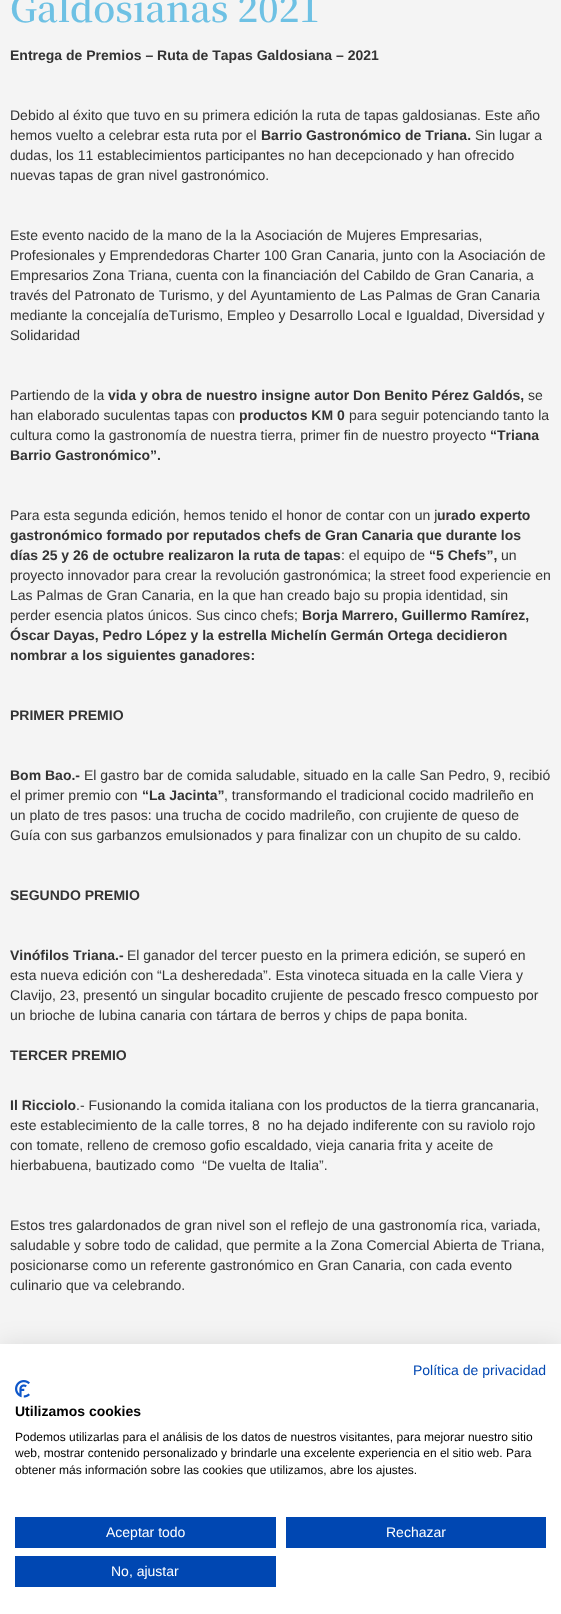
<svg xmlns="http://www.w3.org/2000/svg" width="561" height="1614">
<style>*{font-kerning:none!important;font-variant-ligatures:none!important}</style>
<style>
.a{font:600 36px Noto Serif JP;fill:#6ec1e4}
.b{font:bold 14px Liberation Sans;fill:#333}
.c{font:14px Liberation Sans;fill:#333}
.d{font:14px Liberation Sans;fill:#0047b2}
.e{font:bold 14px Liberation Sans;fill:#000}
.f{font:12px Liberation Sans;fill:#000}
.g{font:14px Liberation Sans;fill:#fff}
</style>
<rect width="100%" height="100%" fill="#f4f4f4"/>
<path fill="#0000001a" filter="blur(12px)" d="M0 1344h561v270H0z"/>
<path fill="#fff" d="M0 1344h561v270H0z"/>
<image href="1.png" x="15" y="1380" width="15" height="18"/>
<path fill="#0047b2" d="M15 1517h261v31H15z"/>
<path fill="#0047b2" d="M286 1517h260v31H286z"/>
<path fill="#0047b2" d="M15 1556h261v31H15z"/>
<text class="a" x="10" y="22">Galdosianas 2021</text>
<text class="b" x="10" y="60">Entrega de Premios – Ruta de Tapas Galdosiana – 2021</text>
<text class="c" x="10" y="120">Debido al éxito que tuvo en su primera edición la ruta de tapas galdosianas. Este año</text>
<text class="c" x="10" y="140">hemos vuelto a celebrar esta ruta por el</text>
<text class="b" x="261" y="140">Barrio Gastronómico de Triana.</text>
<text class="c" x="475" y="140">Sin lugar a</text>
<text class="c" x="10" y="160">dudas, los 11 establecimientos participantes no han decepcionado y han ofrecido</text>
<text class="c" x="10" y="180">nuevas tapas de gran nivel gastronómico.</text>
<text class="c" x="10" y="240">Este evento nacido de la mano de la la Asociación de Mujeres Empresarias,</text>
<text class="c" x="10" y="260">Profesionales y Emprendedoras Charter 100 Gran Canaria, junto con la Asociación de</text>
<text class="c" x="10" y="280">Empresarios Zona Triana, cuenta con la financiación del Cabildo de Gran Canaria, a</text>
<text class="c" x="10" y="300">través del Patronato de Turismo, y del Ayuntamiento de Las Palmas de Gran Canaria</text>
<text class="c" x="10" y="320">mediante la concejalía deTurismo, Empleo y Desarrollo Local e Igualdad, Diversidad y</text>
<text class="c" x="10" y="340">Solidaridad</text>
<text class="c" x="10" y="400">Partiendo de la</text>
<text class="b" x="108" y="400">vida y obra de nuestro insigne autor Don Benito Pérez Galdós,</text>
<text class="c" x="528" y="400">se</text>
<text class="c" x="10" y="420">han elaborado suculentas tapas con</text>
<text class="b" x="239" y="420">productos KM 0</text>
<text class="c" x="349" y="420">para seguir potenciando tanto la</text>
<text class="c" x="10" y="440">cultura como la gastronomía de nuestra tierra, primer fin de nuestro proyecto</text>
<text class="b" x="490" y="440">“Triana</text>
<text class="b" x="10" y="460">Barrio Gastronómico”.</text>
<text class="c" x="10" y="520">Para esta segunda edición, hemos tenido el honor de contar con un j</text>
<text class="b" x="437" y="520">urado experto</text>
<text class="b" x="10" y="540">gastronómico formado por reputados chefs de Gran Canaria que durante los</text>
<text class="b" x="10" y="560">días 25 y 26 de octubre realizaron la ruta de tapas</text>
<text class="c" x="341" y="560">: el equipo de</text>
<text class="b" x="429" y="560">“5 Chefs”,</text>
<text class="c" x="501" y="560">un</text>
<text class="c" x="10" y="580">proyecto innovador para crear la revolución gastronómica; la street food experiencie en</text>
<text class="c" x="10" y="600">Las Palmas de Gran Canaria, en la que han creado bajo su propia identidad, sin</text>
<text class="c" x="10" y="620">perder esencia platos únicos. Sus cinco chefs;</text>
<text class="b" x="302" y="620">Borja Marrero, Guillermo Ramírez,</text>
<text class="b" x="10" y="640">Óscar Dayas, Pedro López y la estrella Michelín Germán Ortega decidieron</text>
<text class="b" x="10" y="660">nombrar a los siguientes ganadores:</text>
<text class="b" x="10" y="720">PRIMER PREMIO</text>
<text class="b" x="10" y="780">Bom Bao.-</text>
<text class="c" x="84" y="780">El gastro bar de comida saludable, situado en la calle San Pedro, 9, recibió</text>
<text class="c" x="10" y="800">el primer premio con</text>
<text class="b" x="142" y="800">“La Jacinta”</text>
<text class="c" x="224" y="800">, transformando el tradicional cocido madrileño en</text>
<text class="c" x="10" y="820">un plato de tres pasos: una trucha de cocido madrileño, con crujiente de queso de</text>
<text class="c" x="10" y="840">Guía con sus garbanzos emulsionados y para finalizar con un chupito de su caldo.</text>
<text class="b" x="10" y="900">SEGUNDO PREMIO</text>
<text class="b" x="10" y="960">Vinófilos Triana.-</text>
<text class="c" x="127" y="960">El ganador del tercer puesto en la primera edición, se superó en</text>
<text class="c" x="10" y="980">esta nueva edición con “La desheredada”. Esta vinoteca situada en la calle Viera y</text>
<text class="c" x="10" y="1000">Clavijo, 23, presentó un singular bocadito crujiente de pescado fresco compuesto por</text>
<text class="c" x="10" y="1020">un brioche de lubina canaria con tártara de berros y chips de papa bonita.</text>
<text class="b" x="10" y="1060">TERCER PREMIO</text>
<text class="b" x="10" y="1110">Il Ricciolo</text>
<text class="c" x="76" y="1110">.- Fusionando la comida italiana con los productos de la tierra grancanaria,</text>
<text class="c" xml:space="preserve" x="10" y="1130">este establecimiento de la calle torres, 8  no ha dejado indiferente con su raviolo rojo</text>
<text class="c" x="10" y="1150">con tomate, relleno de cremoso gofio escaldado, vieja canaria frita y aceite de</text>
<text class="c" xml:space="preserve" x="10" y="1170">hierbabuena, bautizado como  “De vuelta de Italia”.</text>
<text class="c" x="10" y="1230">Estos tres galardonados de gran nivel son el reflejo de una gastronomía rica, variada,</text>
<text class="c" x="10" y="1250">saludable y sobre todo de calidad, que permite a la Zona Comercial Abierta de Triana,</text>
<text class="c" x="10" y="1270">posicionarse como un referente gastronómico en Gran Canaria, con cada evento</text>
<text class="c" x="10" y="1290">culinario que va celebrando.</text>
<text class="d" x="413" y="1375">Política de privacidad</text>
<text class="e" x="15" y="1416">Utilizamos cookies</text>
<text class="f" x="15" y="1441">Podemos utilizarlas para el análisis de los datos de nuestros visitantes, para mejorar nuestro sitio</text>
<text class="f" x="15" y="1457">web, mostrar contenido personalizado y brindarle una excelente experiencia en el sitio web. Para</text>
<text class="f" x="15" y="1474">obtener más información sobre las cookies que utilizamos, abre los ajustes.</text>
<text class="g" x="106" y="1537">Aceptar todo</text>
<text class="g" x="386" y="1537">Rechazar</text>
<text class="g" x="111" y="1576">No, ajustar</text>
</svg>
